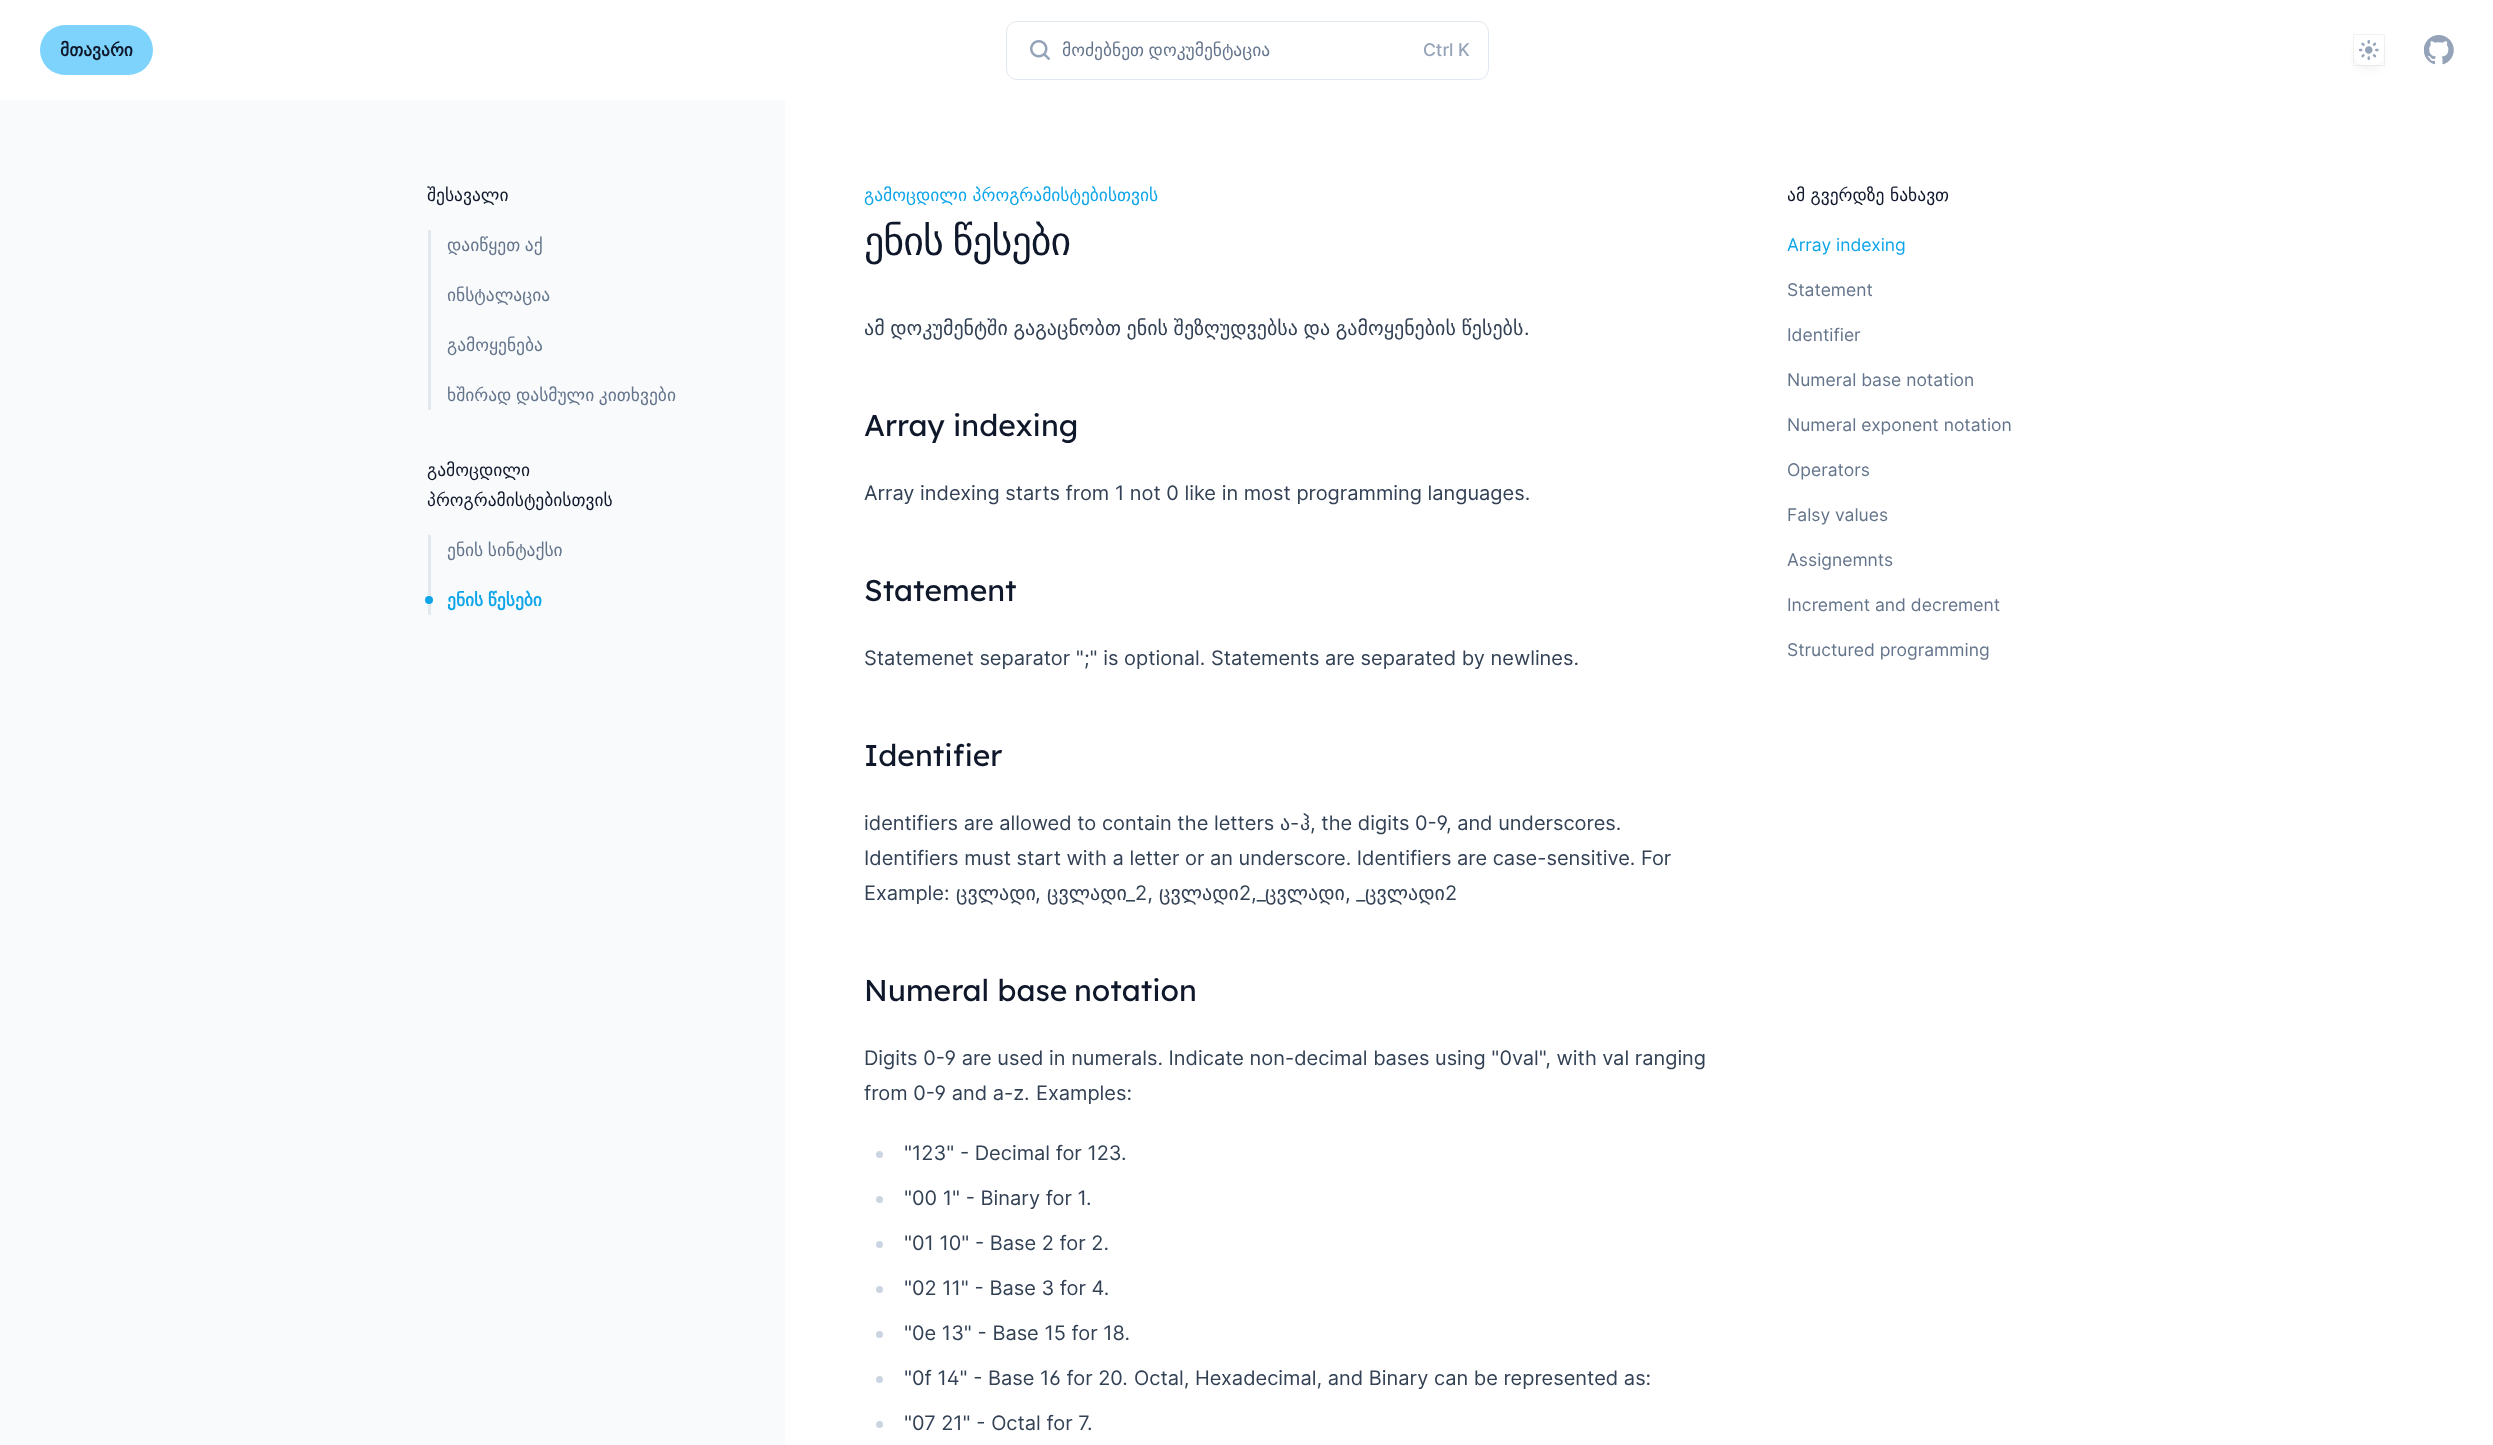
<svg xmlns="http://www.w3.org/2000/svg" width="2493" height="1445">
<style>
.a{font:bold 17.5px DejaVu Sans;fill:#0f172a}
.b{font:17.5px DejaVu Sans;fill:#64748b}
.c{font:500 17.5px Inter;fill:#94a3b8}
.d{font:17.5px DejaVu Sans;fill:#0f172a}
.e{font:bold 17.5px DejaVu Sans;fill:#0ea5e9}
.f{font:17.5px DejaVu Sans;fill:#0ea5e9}
.g{font:40px DejaVu Sans;letter-spacing:-1px;fill:#0f172a}
.h{font:20px DejaVu Sans;fill:#334155}
.i{font:20px Inter;fill:#334155}
.j{font:30px Lexend;fill:#0f172a}
.k{font:20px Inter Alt;fill:#334155}
.l{font:17.5px Inter;fill:#0ea5e9}
.m{font:17.5px Inter;fill:#64748b}
</style>
<defs>
<clipPath id="clip1"><path d="M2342 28h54v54h-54zm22 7h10c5.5 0 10 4.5 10 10v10c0 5.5-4.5 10-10 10h-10c-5.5 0-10-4.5-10-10v-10c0-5.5 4.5-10 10-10z" clip-rule="evenodd"/></clipPath>
<clipPath id="clip2"><path d="M1788 100h310v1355H1788z"/></clipPath>
</defs>
<rect width="100%" height="100%" fill="#fff"/>
<rect fill="#7dd3fc" x="40" y="25" width="113" height="50" rx="25"/>
<rect fill="none" stroke="#e2e8f0" x="1006.5" y="21.5" width="482" height="58" rx="10.5"/>
<image href="1.png" x="1030" y="40" width="20" height="20"/>
<g clip-path="url(#clip1)">
<rect fill="#0000000d" filter="blur(4px)" x="2355" y="41" width="28" height="28" rx="9"/>
</g>
<path fill="none" stroke="#0000000d" d="M2353.5 34.5h31v31H2353.5z"/>
<image href="2.png" x="2359" y="40" width="20" height="20"/>
<image href="3.png" x="2424" y="35" width="30" height="30"/>
<path fill="#f8fafc" d="M0 100h785v1345H0z"/>
<path fill="#e2e8f0" d="M428 230h3v180H428z"/>
<path fill="#e2e8f0" d="M428 535h3v80H428z"/>
<circle fill="#0ea5e9" cx="429" cy="600" r="4"/>
<circle fill="#cbd5e1" cx="879.5" cy="1154.5" r="3.5"/>
<circle fill="#cbd5e1" cx="879.5" cy="1199.5" r="3.5"/>
<circle fill="#cbd5e1" cx="879.5" cy="1244.5" r="3.5"/>
<circle fill="#cbd5e1" cx="879.5" cy="1289.5" r="3.5"/>
<circle fill="#cbd5e1" cx="879.5" cy="1334.5" r="3.5"/>
<circle fill="#cbd5e1" cx="879.5" cy="1379.5" r="3.5"/>
<circle fill="#cbd5e1" cx="879.5" cy="1424.5" r="3.5"/>
<text class="a" x="60" y="56">მთავარი</text>
<text class="b" x="1062" y="56" word-spacing="-1">მოძებნეთ დოკუმენტაცია</text>
<text class="c" x="1423" y="56">Ctrl K</text>
<text class="d" x="427" y="201">შესავალი</text>
<text class="b" x="447" y="251" word-spacing="-1">დაიწყეთ აქ</text>
<text class="b" x="447" y="301">ინსტალაცია</text>
<text class="b" x="447" y="351">გამოყენება</text>
<text class="b" x="447" y="401" word-spacing="-1">ხშირად დასმული კითხვები</text>
<text class="d" x="427" y="476">გამოცდილი</text>
<text class="d" x="427" y="506">პროგრამისტებისთვის</text>
<text class="b" x="447" y="556" word-spacing="-1">ენის სინტაქსი</text>
<text class="e" x="447" y="606" word-spacing="-1">ენის წესები</text>
<text class="f" x="864" y="201">გამოცდილი პროგრამისტებისთვის</text>
<text class="g" x="864" y="255" word-spacing="-2">ენის წესები</text>
<text class="h" x="864" y="335" word-spacing="-0.75">ამ დოკუმენტში გაგაცნობთ ენის შეზღუდვებსა და გამოყენების წესებს</text>
<text class="i" x="1524" y="335">.</text>
<text class="j" x="864" y="436">Array indexing</text>
<text class="i" x="864" y="500">Array indexing starts from 1 not 0 like in most programming languages.</text>
<text class="j" x="864" y="601">Statement</text>
<text class="i" x="864" y="665">Statemenet separator ";" is optional. Statements are separated by newlines.</text>
<text class="j" x="864" y="766">Identifier</text>
<text class="i" x="864" y="830">identifiers are allowed to contain the letters</text>
<text class="h" x="1280" y="830">ა</text>
<text class="i" x="1290" y="830">-</text>
<text class="h" x="1300" y="830">ჰ</text>
<text class="k" x="1310" y="830">, the digits 0-9, and underscores.</text>
<text class="i" x="864" y="865">Identifiers must start with a letter or an underscore. Identifiers are case-sensitive. For</text>
<text class="i" x="864" y="900">Example:</text>
<text class="h" x="956" y="900">ცვლადი</text>
<text class="i" x="1035" y="900">,</text>
<text class="h" x="1047" y="900">ცვლადი</text>
<text class="i" x="1126" y="900">_2,</text>
<text class="h" x="1159" y="900">ცვლადი</text>
<text class="i" x="1239" y="900">2,_</text>
<text class="h" x="1265" y="900">ცვლადი</text>
<text class="i" x="1345" y="900">, _</text>
<text class="h" x="1365" y="900">ცვლადი</text>
<text class="i" x="1445" y="900">2</text>
<text class="j" x="864" y="1001">Numeral base</text>
<text class="j" x="1074" y="1001">notation</text>
<text class="k" x="864" y="1065">Digits 0-9 are used in numerals. Indicate non-decimal bases using "0val", with val ranging</text>
<text class="k" x="864" y="1100">from 0-9 and a-z.</text>
<text class="i" x="1036" y="1100">Examples:</text>
<text class="i" x="904" y="1160">"123" - Decimal for 123.</text>
<text class="i" x="904" y="1205">"00 1" - Binary for 1.</text>
<text class="i" x="904" y="1250">"01 10" - Base 2 for 2.</text>
<text class="i" x="904" y="1295">"02 11" - Base 3 for 4.</text>
<text class="i" x="904" y="1340">"0e 13" - Base 15 for 18.</text>
<text class="k" x="904" y="1385">"0f 14" - Base 16 for 20.</text>
<text class="i" x="1134" y="1385">Octal, Hexadecimal, and Binary can be represented as:</text>
<text class="i" x="904" y="1430">"07 21" - Octal for 7.</text>
<g clip-path="url(#clip2)">
<text class="d" x="1787" y="201">ამ გვერდზე ნახავთ</text>
</g>
<text class="l" x="1787" y="251">Array indexing</text>
<text class="m" x="1787" y="296">Statement</text>
<text class="m" x="1787" y="341">Identifier</text>
<text class="m" x="1787" y="386">Numeral base notation</text>
<text class="m" x="1787" y="431">Numeral exponent notation</text>
<text class="m" x="1787" y="476">Operators</text>
<text class="m" x="1787" y="521">Falsy values</text>
<text class="m" x="1787" y="566">Assignemnts</text>
<text class="m" x="1787" y="611">Increment and decrement</text>
<text class="m" x="1787" y="656">Structured programming</text>
</svg>
